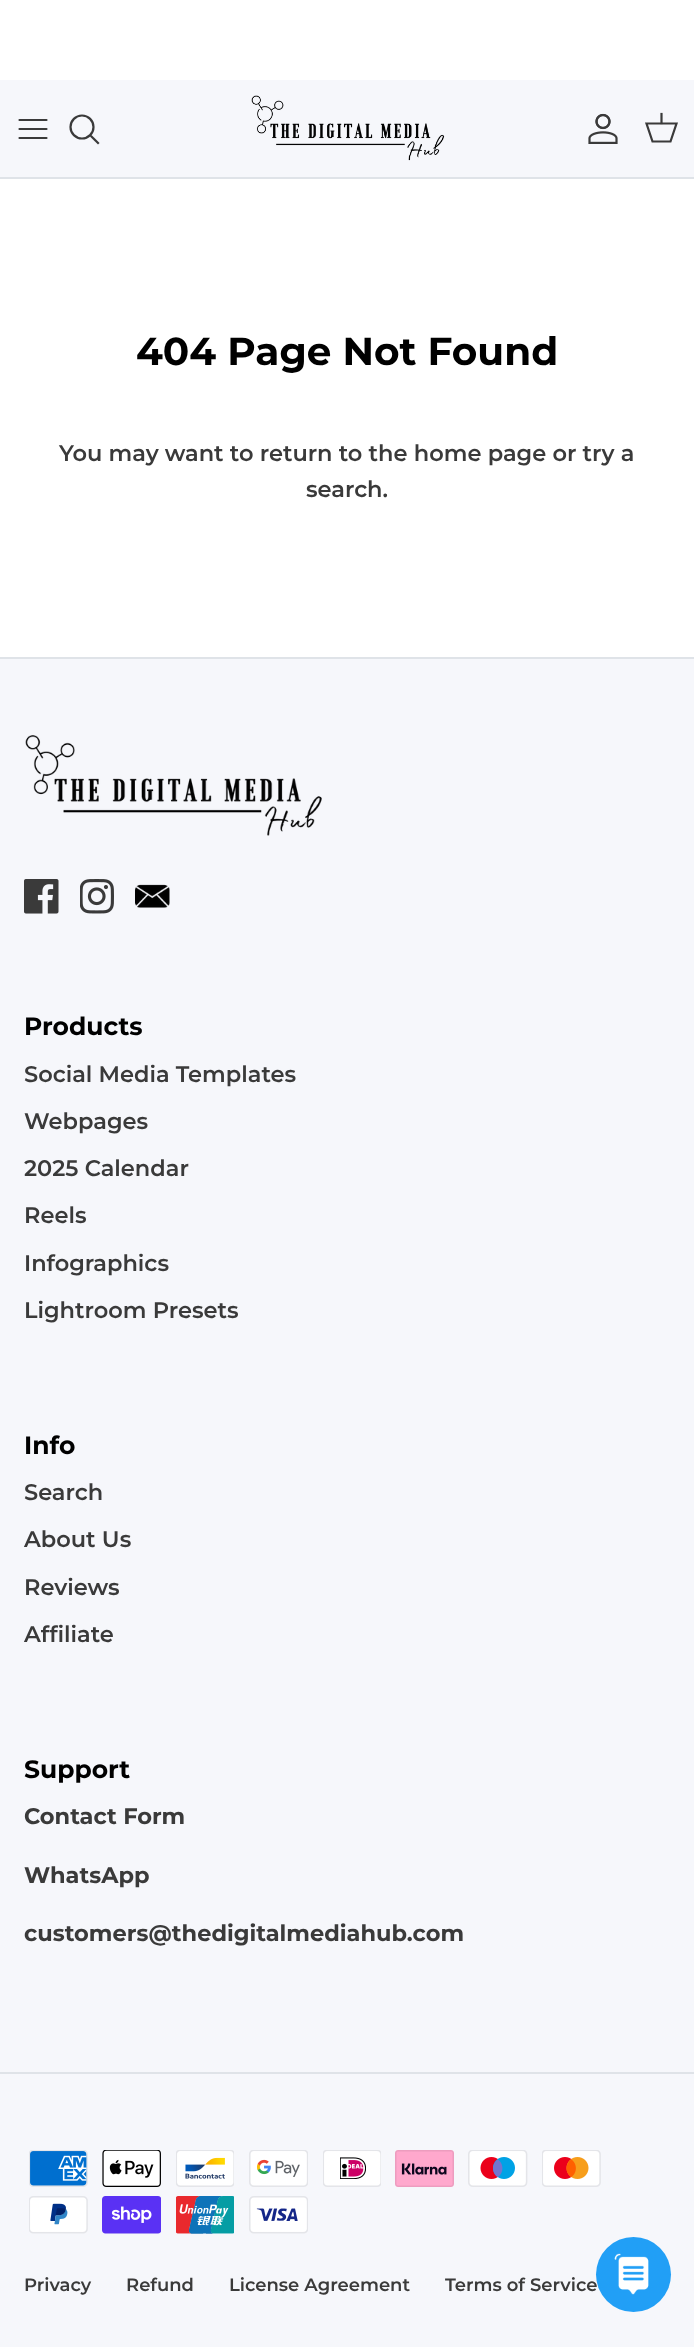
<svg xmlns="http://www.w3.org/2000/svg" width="694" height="2347">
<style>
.a{font:bold 39px Montserrat;fill:#000}
.b{font:600 22.5px Montserrat;fill:#3a3a3a}
.c{font:bold 25px Montserrat;fill:#000}
.d{font:bold 22.5px Montserrat;fill:#3a3a3a}
.e{font:600 18px Montserrat;fill:#3a3a3a}
</style>
<defs>
<clipPath id="clip1"><path d="M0 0h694v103h-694zm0 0h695v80h-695z" clip-rule="evenodd"/></clipPath>
</defs>
<rect width="100%" height="100%" fill="#fff"/>
<g clip-path="url(#clip1)">
<path fill="#0000001c" filter="blur(7px)" d="M-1 -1h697v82H-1z"/>
</g>
<path fill="#f6f7fb" d="M0 80h694v97H0z"/>
<path fill="#dfe3e8" d="M0 177h694v2H0z"/>
<path fill="none" stroke="#3a3a3a" stroke-width="2.2" stroke-linecap="round" stroke-linejoin="round" d="M19.5 129h27m-27-9h27m-27 18h27"/>
<circle fill="none" stroke="#3a3a3a" stroke-width="2.2" cx="82" cy="127" r="11.5"/>
<path fill="none" stroke="#3a3a3a" stroke-width="2.2" stroke-linecap="square" d="M91.5 136.5l6.5 6.5"/>
<image href="1.png" x="251" y="95" width="194" height="66"/>
<image href="2.png" x="588" y="113" width="30" height="31"/>
<path fill="none" stroke="#3a3a3a" stroke-width="2.2" d="M646.5 123.5h30l-6 18h-18z"/>
<path fill="none" stroke="#3a3a3a" stroke-width="2.2" stroke-linecap="square" d="M661.5 123v-9"/>
<path fill="#f6f7fb" d="M0 659h694v1688H0z"/>
<path fill="#dfe3e8" d="M0 657h694v2H0z"/>
<image href="3.png" x="25" y="735" width="297" height="101"/>
<image href="4.png" x="24" y="879" width="35" height="35"/>
<image href="5.png" x="80" y="879" width="34" height="35"/>
<image href="6.png" x="135" y="884" width="35" height="24"/>
<path fill="#dfe3e8" d="M0 2072h694v2H0z"/>
<image href="7.png" x="29" y="2150" width="59" height="37"/>
<image href="8.png" x="102" y="2150" width="59" height="37"/>
<image href="9.png" x="176" y="2150" width="58" height="37"/>
<image href="10.png" x="249" y="2150" width="59" height="37"/>
<image href="11.png" x="323" y="2150" width="58" height="37"/>
<image href="12.png" x="395" y="2150" width="59" height="37"/>
<image href="13.png" x="468" y="2150" width="60" height="37"/>
<image href="14.png" x="542" y="2150" width="59" height="37"/>
<image href="15.png" x="29" y="2196" width="59" height="38"/>
<image href="16.png" x="102" y="2196" width="59" height="38"/>
<image href="17.png" x="176" y="2196" width="58" height="38"/>
<image href="18.png" x="249" y="2196" width="59" height="38"/>
<text class="a" x="136" y="365">404 Page Not Found</text>
<text class="b" x="59" y="461">You may want to return to the home page or try a</text>
<text class="b" x="306" y="497">search.</text>
<text class="c" x="24" y="1035">Products</text>
<text class="b" x="24" y="1082">Social Media Templates</text>
<text class="b" x="24" y="1129">Webpages</text>
<text class="b" x="24" y="1176">2025 Calendar</text>
<text class="b" x="24" y="1223">Reels</text>
<text class="b" x="24" y="1271">Infographics</text>
<text class="b" x="24" y="1318">Lightroom Presets</text>
<text class="c" x="24" y="1454">Info</text>
<text class="b" x="24" y="1500">Search</text>
<text class="b" x="24" y="1547">About Us</text>
<text class="b" x="24" y="1595">Reviews</text>
<text class="b" x="24" y="1642">Affiliate</text>
<text class="c" x="24" y="1778">Support</text>
<text class="d" x="24" y="1824">Contact Form</text>
<text class="d" x="24" y="1883">WhatsApp</text>
<text class="d" x="24" y="1941">customers@thedigitalmediahub.com</text>
<text class="e" x="24" y="2291">Privacy</text>
<text class="e" x="126" y="2291">Refund</text>
<text class="e" x="229" y="2291">License Agreement</text>
<text class="e" x="445" y="2291">Terms of Service</text>
<circle fill="#219ff6" cx="633.5" cy="2274.5" r="37.5"/>
<image href="19.png" x="614" y="2253" width="35" height="42"/>
</svg>
